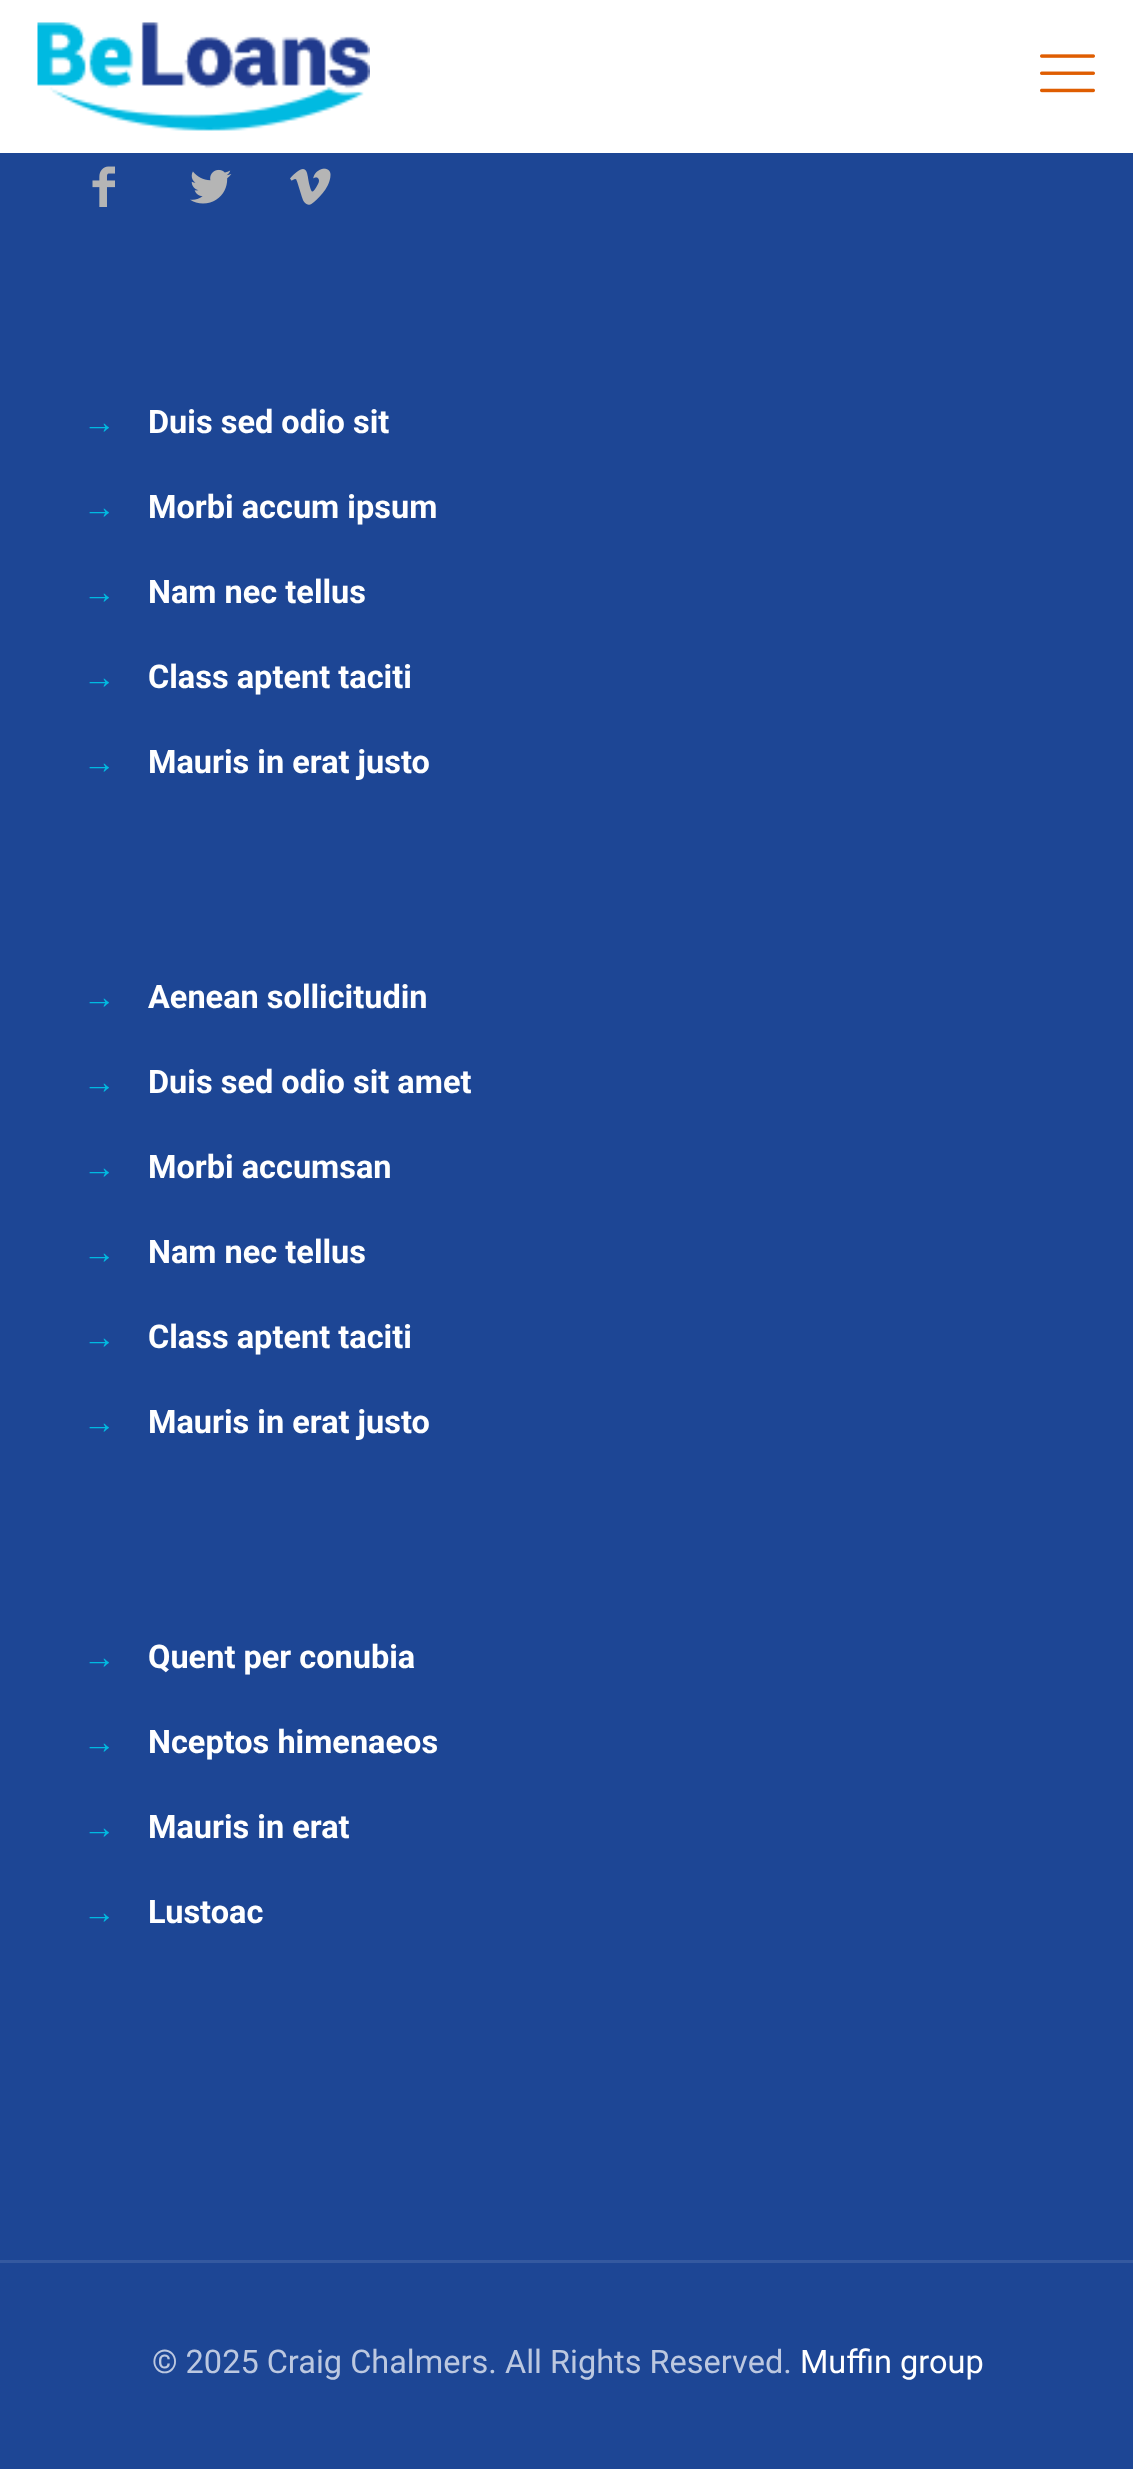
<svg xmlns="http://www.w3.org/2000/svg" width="1133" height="2469">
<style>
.a{font:bold 32.5px Liberation Sans;fill:#00bae1}
.b{font:bold 32.5px Roboto;fill:#fff}
.c{font:32.5px Roboto;fill:#bcc8e0}
.d{font:32.5px Roboto;fill:#fff}
</style>
<rect width="100%" height="100%" fill="#1d4695"/>
<path fill="#fff" d="M0 0h1133v153H0z"/>
<image href="1.png" x="37" y="22" width="333" height="109"/>
<image href="2.png" x="1040" y="54" width="55" height="39"/>
<image href="3.png" x="92" y="166" width="23" height="41"/>
<image href="4.png" x="190" y="169" width="42" height="35"/>
<image href="5.png" x="290" y="168" width="41" height="37"/>
<path fill="#3459a0" d="M0 2260h1133v3H0z"/>
<text class="a" x="83" y="433">→</text>
<text class="b" x="148" y="433">Duis sed odio sit</text>
<text class="a" x="83" y="518">→</text>
<text class="b" x="148" y="518">Morbi accum ipsum</text>
<text class="a" x="83" y="603">→</text>
<text class="b" x="148" y="603">Nam nec tellus</text>
<text class="a" x="83" y="688">→</text>
<text class="b" x="148" y="688">Class aptent taciti</text>
<text class="a" x="83" y="773">→</text>
<text class="b" x="148" y="773">Mauris in erat justo</text>
<text class="a" x="83" y="1008">→</text>
<text class="b" x="148" y="1008">Aenean sollicitudin</text>
<text class="a" x="83" y="1093">→</text>
<text class="b" x="148" y="1093">Duis sed odio sit amet</text>
<text class="a" x="83" y="1178">→</text>
<text class="b" x="148" y="1178">Morbi accumsan</text>
<text class="a" x="83" y="1263">→</text>
<text class="b" x="148" y="1263">Nam nec tellus</text>
<text class="a" x="83" y="1348">→</text>
<text class="b" x="148" y="1348">Class aptent taciti</text>
<text class="a" x="83" y="1433">→</text>
<text class="b" x="148" y="1433">Mauris in erat justo</text>
<text class="a" x="83" y="1668">→</text>
<text class="b" x="148" y="1668">Quent per conubia</text>
<text class="a" x="83" y="1753">→</text>
<text class="b" x="148" y="1753">Nceptos himenaeos</text>
<text class="a" x="83" y="1838">→</text>
<text class="b" x="148" y="1838">Mauris in erat</text>
<text class="a" x="83" y="1923">→</text>
<text class="b" x="148" y="1923">Lustoac</text>
<text class="c" x="152" y="2373">© 2025 Craig Chalmers. All Rights Reserved.</text>
<text class="d" x="800" y="2373">Muffin group</text>
</svg>
